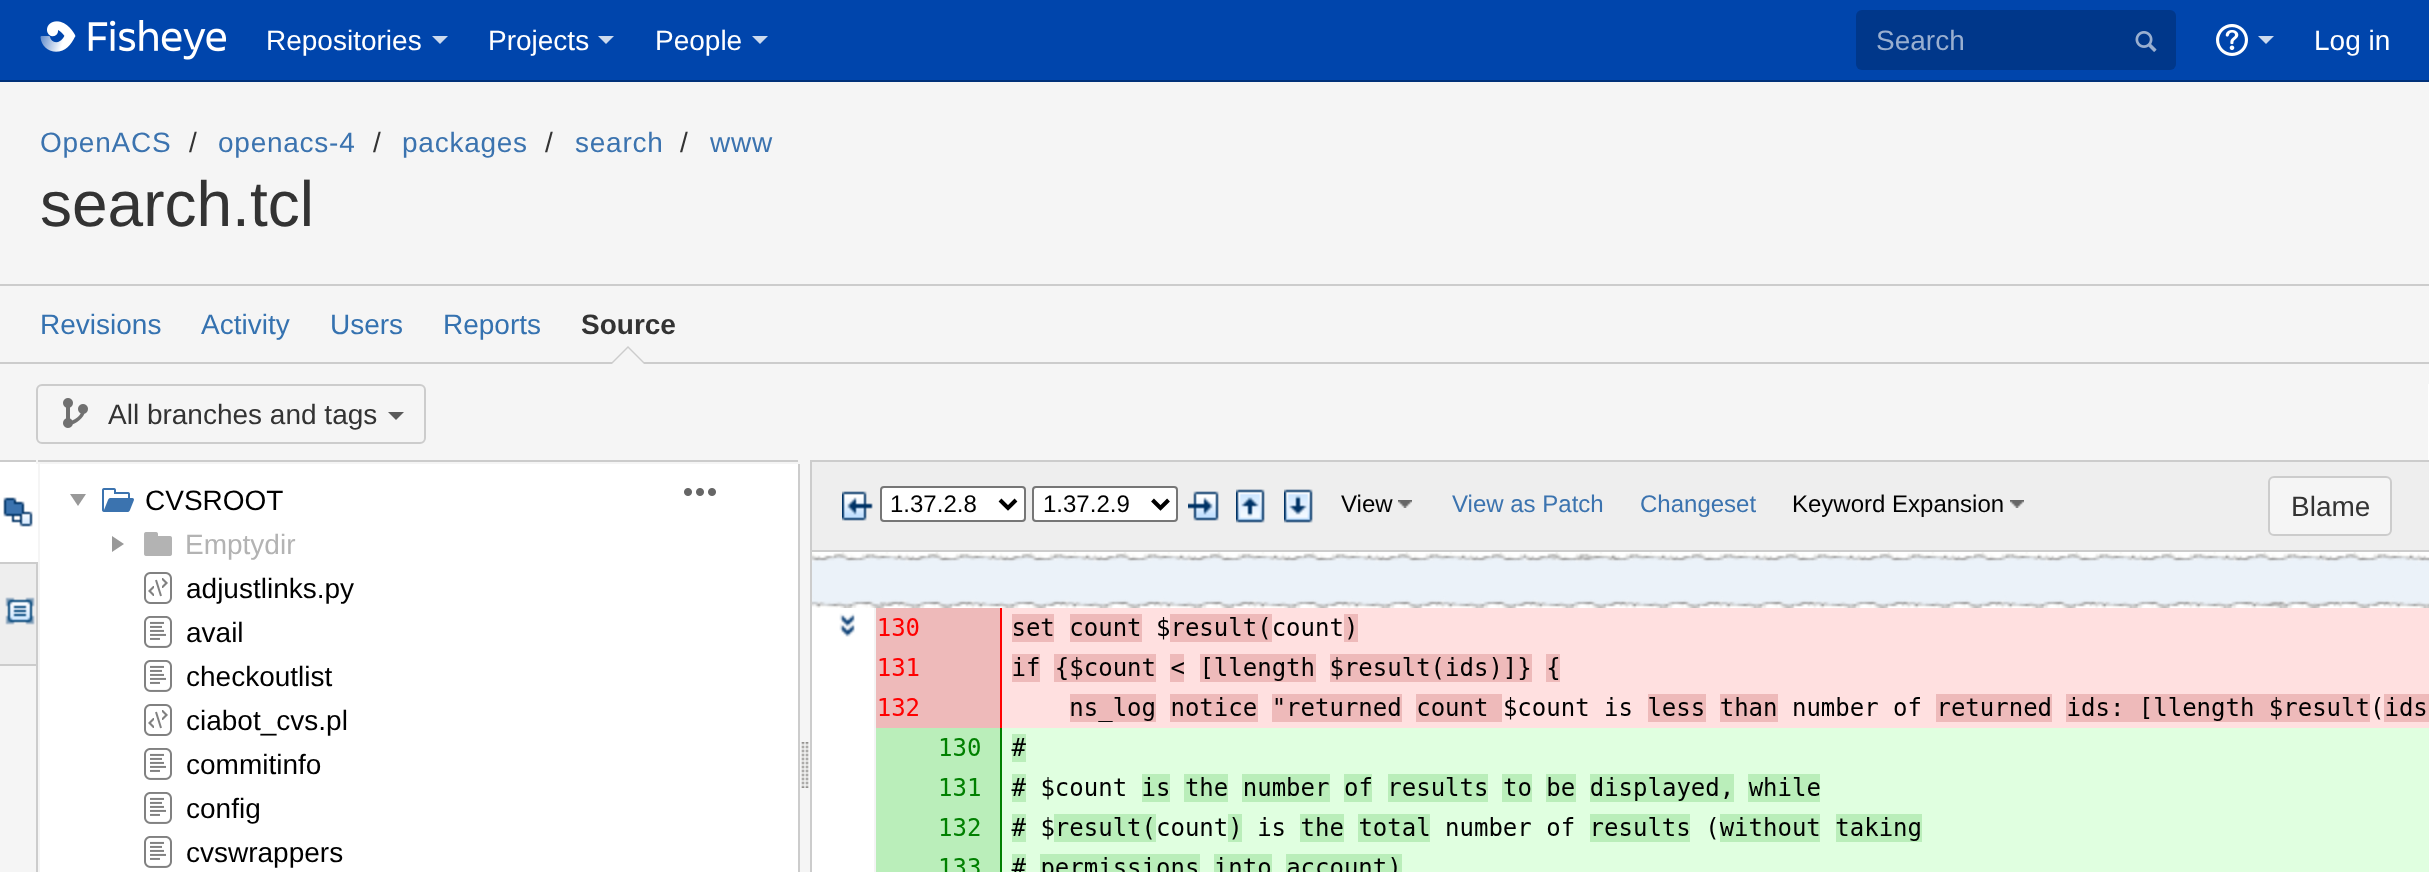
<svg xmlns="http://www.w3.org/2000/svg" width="2429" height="872">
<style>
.a{font:28px Liberation Sans;fill:#fff}
.b{font:28px Liberation Sans;fill:#99afd0}
.c{font:28px Liberation Sans;letter-spacing:0.75px;fill:#3b73af}
.d{font:28px Liberation Sans;letter-spacing:0.75px;fill:#333}
.e{font:64px Liberation Sans;fill:#333}
.f{font:28px Liberation Sans;fill:#3572b0}
.g{font:bold 28px Liberation Sans;fill:#333}
.h{font:28px Liberation Sans;fill:#333}
.i{font:28px Liberation Sans;fill:#000}
.j{font:28px Liberation Sans;fill:#b3b3b3}
.k{font:24px Liberation Sans;fill:#000}
.l{font:24px Liberation Sans;fill:#3b73af}
</style>
<rect width="100%" height="100%" fill="#f5f5f5"/>
<path fill="#0045ac" d="M0 0h2429v80H0z"/>
<path fill="#003179" d="M0 80h2429v2H0z"/>
<image href="1.png" x="40" y="20" width="186" height="40"/>
<path fill="#ccdaee" d="M432 36h16l-8 8z"/>
<path fill="#ccdaee" d="M598 36h16l-8 8z"/>
<path fill="#ccdaee" d="M752 36h16l-8 8z"/>
<rect fill="#00378a" x="1856" y="10" width="320" height="60" rx="6"/>
<image href="2.png" x="2135" y="31" width="22" height="21"/>
<image href="3.png" x="2216" y="24" width="32" height="32"/>
<path fill="#ccdaee" d="M2258 36h16l-8 8z"/>
<path fill="#ccc" d="M0 284h2429v2H0z"/>
<path fill="#ccc" d="M0 362h2429v2H0z"/>
<path fill="#ccc" d="M644 362h-32l16-16z"/>
<path fill="#f5f5f5" d="M644 364h-32l16-16z"/>
<path fill="#ccc" d="M0 460h36v2H0z"/>
<path fill="#fff" d="M0 462h38v100H0z"/>
<image href="4.png" x="3" y="497" width="30" height="30"/>
<path fill="#ccc" d="M0 562h38v2H0z"/>
<path fill="#eee" d="M0 564h36v100H0z"/>
<image href="5.png" x="5" y="597" width="30" height="28"/>
<path fill="#ccc" d="M0 664h36v2H0z"/>
<path fill="#fff" d="M40 464h758v408H40z"/>
<path fill="#ccc" d="M798 464h2v408H798z"/>
<path fill="#ccc" d="M36 564h2v308H36z"/>
<path fill="#f5f5f5" d="M36 462h2v2H36z"/>
<rect fill="none" stroke="#ccc" stroke-width="2" x="37" y="385" width="388" height="58" rx="5"/>
<image href="6.png" x="63" y="398" width="25" height="30"/>
<path fill="#5a5a5a" d="M388 412h16l-8 8z"/>
<path fill="#ccc" d="M38 460h760v2H38z"/>
<path fill="#999" d="M70 494h16l-8 12z"/>
<image href="7.png" x="102" y="488" width="32" height="24"/>
<path fill="#999" d="M112 552v-16l12 8z"/>
<image href="8.png" x="144" y="532" width="28" height="24"/>
<image href="9.png" x="144" y="572" width="28" height="32"/>
<image href="10.png" x="144" y="616" width="28" height="32"/>
<image href="10.png" x="144" y="660" width="28" height="32"/>
<image href="9.png" x="144" y="704" width="28" height="32"/>
<image href="10.png" x="144" y="748" width="28" height="32"/>
<image href="10.png" x="144" y="792" width="28" height="32"/>
<image href="10.png" x="144" y="836" width="28" height="32"/>
<image href="11.png" x="684" y="488" width="32" height="8"/>
<image href="12.png" x="801" y="742" width="8" height="46"/>
<path fill="#fff" d="M2428 384h1v76H2428z"/>
<path fill="#ccc" d="M810 460h2v412H810z"/>
<path fill="#eee" d="M812 462h1617v88H812z"/>
<path fill="#ccc" d="M812 460h1617v2H812z"/>
<path fill="#ccc" d="M812 550h1617v2H812z"/>
<image href="13.png" x="842" y="491" width="31" height="30"/>
<rect fill="#fff" stroke="#767676" stroke-width="2" x="881" y="487" width="144" height="34" rx="3"/>
<path fill="none" stroke="#000" stroke-width="4" d="M1000 500l8 8l8-8"/>
<rect fill="#fff" stroke="#767676" stroke-width="2" x="1033" y="487" width="144" height="34" rx="3"/>
<path fill="none" stroke="#000" stroke-width="4" d="M1152.5 500l8 8l8-8"/>
<image href="14.png" x="1188" y="491" width="31" height="30"/>
<image href="15.png" x="1236" y="489" width="29" height="34"/>
<image href="16.png" x="1284" y="489" width="29" height="34"/>
<image href="17.png" x="1398" y="500" width="14" height="8"/>
<image href="17.png" x="2010" y="500" width="14" height="8"/>
<rect fill="#f5f5f5" stroke="#ccc" stroke-width="2" x="2269" y="477" width="122" height="58" rx="5"/>
<image href="18.png" x="812" y="552" width="1617" height="320"/>
<text class="a" x="266" y="50">Repositories</text>
<text class="a" x="488" y="50">Projects</text>
<text class="a" x="655" y="50">People</text>
<text class="b" x="1876" y="50">Search</text>
<text class="a" x="2314" y="50">Log in</text>
<text class="c" x="40" y="152">OpenACS</text>
<text class="d" x="189" y="152">/</text>
<text class="c" x="218" y="152">openacs-4</text>
<text class="d" x="373" y="152">/</text>
<text class="c" x="402" y="152">packages</text>
<text class="d" x="545" y="152">/</text>
<text class="c" x="575" y="152">search</text>
<text class="d" x="680" y="152">/</text>
<text class="c" x="710" y="152">www</text>
<text class="e" x="40" y="226">search.tcl</text>
<text class="f" x="40" y="334">Revisions</text>
<text class="f" x="201" y="334">Activity</text>
<text class="f" x="330" y="334">Users</text>
<text class="f" x="443" y="334">Reports</text>
<text class="g" x="581" y="334">Source</text>
<text class="h" x="108" y="424">All branches and tags</text>
<text class="i" x="145" y="510">CVSROOT</text>
<text class="j" x="185" y="554">Emptydir</text>
<text class="i" x="186" y="598">adjustlinks.py</text>
<text class="i" x="186" y="642">avail</text>
<text class="i" x="186" y="686">checkoutlist</text>
<text class="i" x="186" y="730">ciabot_cvs.pl</text>
<text class="i" x="186" y="774">commitinfo</text>
<text class="i" x="186" y="818">config</text>
<text class="i" x="186" y="862">cvswrappers</text>
<text class="k" x="890" y="512">1.37.2.8</text>
<text class="k" x="1043" y="512">1.37.2.9</text>
<text class="k" x="1341" y="512">View</text>
<text class="l" x="1452" y="512">View as Patch</text>
<text class="l" x="1640" y="512">Changeset</text>
<text class="k" x="1792" y="512">Keyword Expansion</text>
<text class="h" x="2291" y="516">Blame</text>
</svg>
